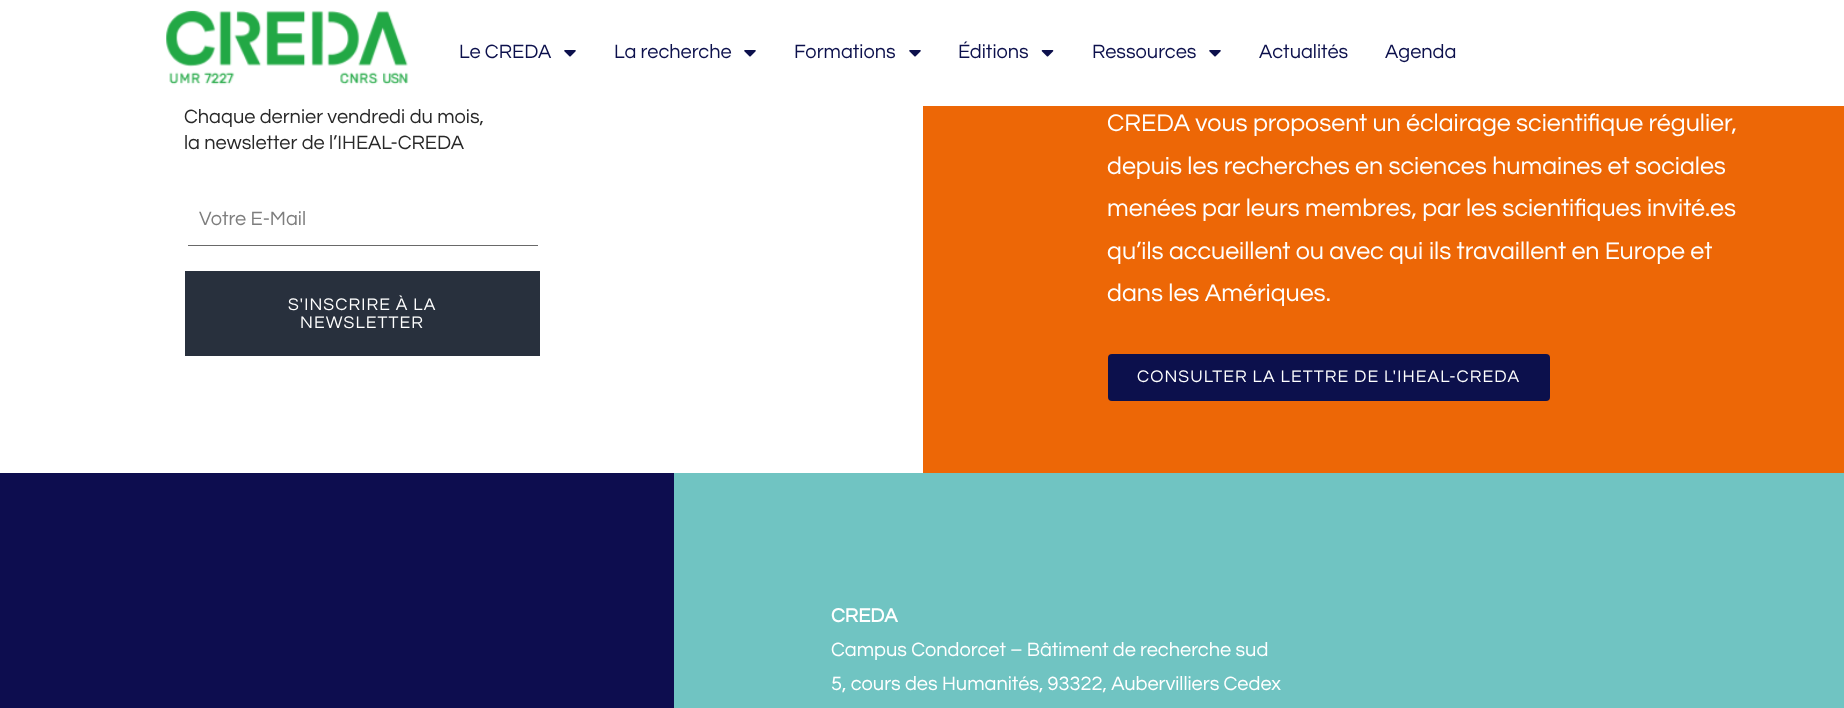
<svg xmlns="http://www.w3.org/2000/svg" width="1844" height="708">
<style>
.a{font:20px Questrial;fill:#0c104c}
.b{font:20px Questrial;fill:#282828}
.c{font:20px Questrial;fill:#7e7e7e}
.d{font:17.5px Questrial;letter-spacing:1.1px;fill:#fff}
.e{font:25px Questrial;fill:#fff}
.f{font:bold 20px Questrial;fill:#fff}
.g{font:20px Questrial;fill:#fff}
</style>
<rect width="100%" height="100%" fill="#0d0d4f"/>
<path fill="#fff" d="M0 0h1844v106H0z"/>
<image href="1.png" x="166" y="10" width="243" height="75"/>
<image href="2.png" x="564" y="50" width="12" height="7"/>
<image href="2.png" x="744" y="50" width="12" height="7"/>
<image href="2.png" x="909" y="50" width="12" height="7"/>
<image href="3.png" x="1041" y="50" width="13" height="7"/>
<image href="2.png" x="1209" y="50" width="12" height="7"/>
<path fill="#fff" d="M0 106h923v367H0z"/>
<path fill="#696969" d="M188 245h350v1H188z"/>
<path fill="#28303d" d="M185 271h355v85H185z"/>
<path fill="#ed6706" d="M923 106h921v367H923z"/>
<rect fill="#0c104c" x="1108" y="354" width="442" height="47" rx="4"/>
<path fill="#70c4c2" d="M674 473h1170v235H674z"/>
<text class="a" x="459" y="58">Le CREDA</text>
<text class="a" x="614" y="58">La recherche</text>
<text class="a" x="794" y="58">Formations</text>
<text class="a" x="958" y="58">Éditions</text>
<text class="a" x="1092" y="58">Ressources</text>
<text class="a" x="1259" y="58">Actualités</text>
<text class="a" x="1385" y="58">Agenda</text>
<text class="b" x="184" y="123">Chaque dernier vendredi du mois,</text>
<text class="b" x="184" y="149">la newsletter de l’IHEAL-CREDA</text>
<text class="c" x="199" y="225">Votre E-Mail</text>
<text class="d" x="288" y="310">S'INSCRIRE À LA</text>
<text class="d" x="300" y="328">NEWSLETTER</text>
<text class="e" x="1107" y="131">CREDA vous proposent un éclairage scientifique régulier,</text>
<text class="e" x="1107" y="174">depuis les recherches en sciences humaines et sociales</text>
<text class="e" x="1107" y="216">menées par leurs membres, par les scientifiques invité.es</text>
<text class="e" x="1107" y="259">qu’ils accueillent ou avec qui ils travaillent en Europe et</text>
<text class="e" x="1107" y="301">dans les Amériques.</text>
<text class="d" x="1137" y="382">CONSULTER LA LETTRE DE L'IHEAL-CREDA</text>
<text class="f" x="831" y="622">CREDA</text>
<text class="g" x="831" y="656">Campus Condorcet – Bâtiment de recherche sud</text>
<text class="g" x="831" y="690">5, cours des Humanités, 93322, Aubervilliers Cedex</text>
</svg>
